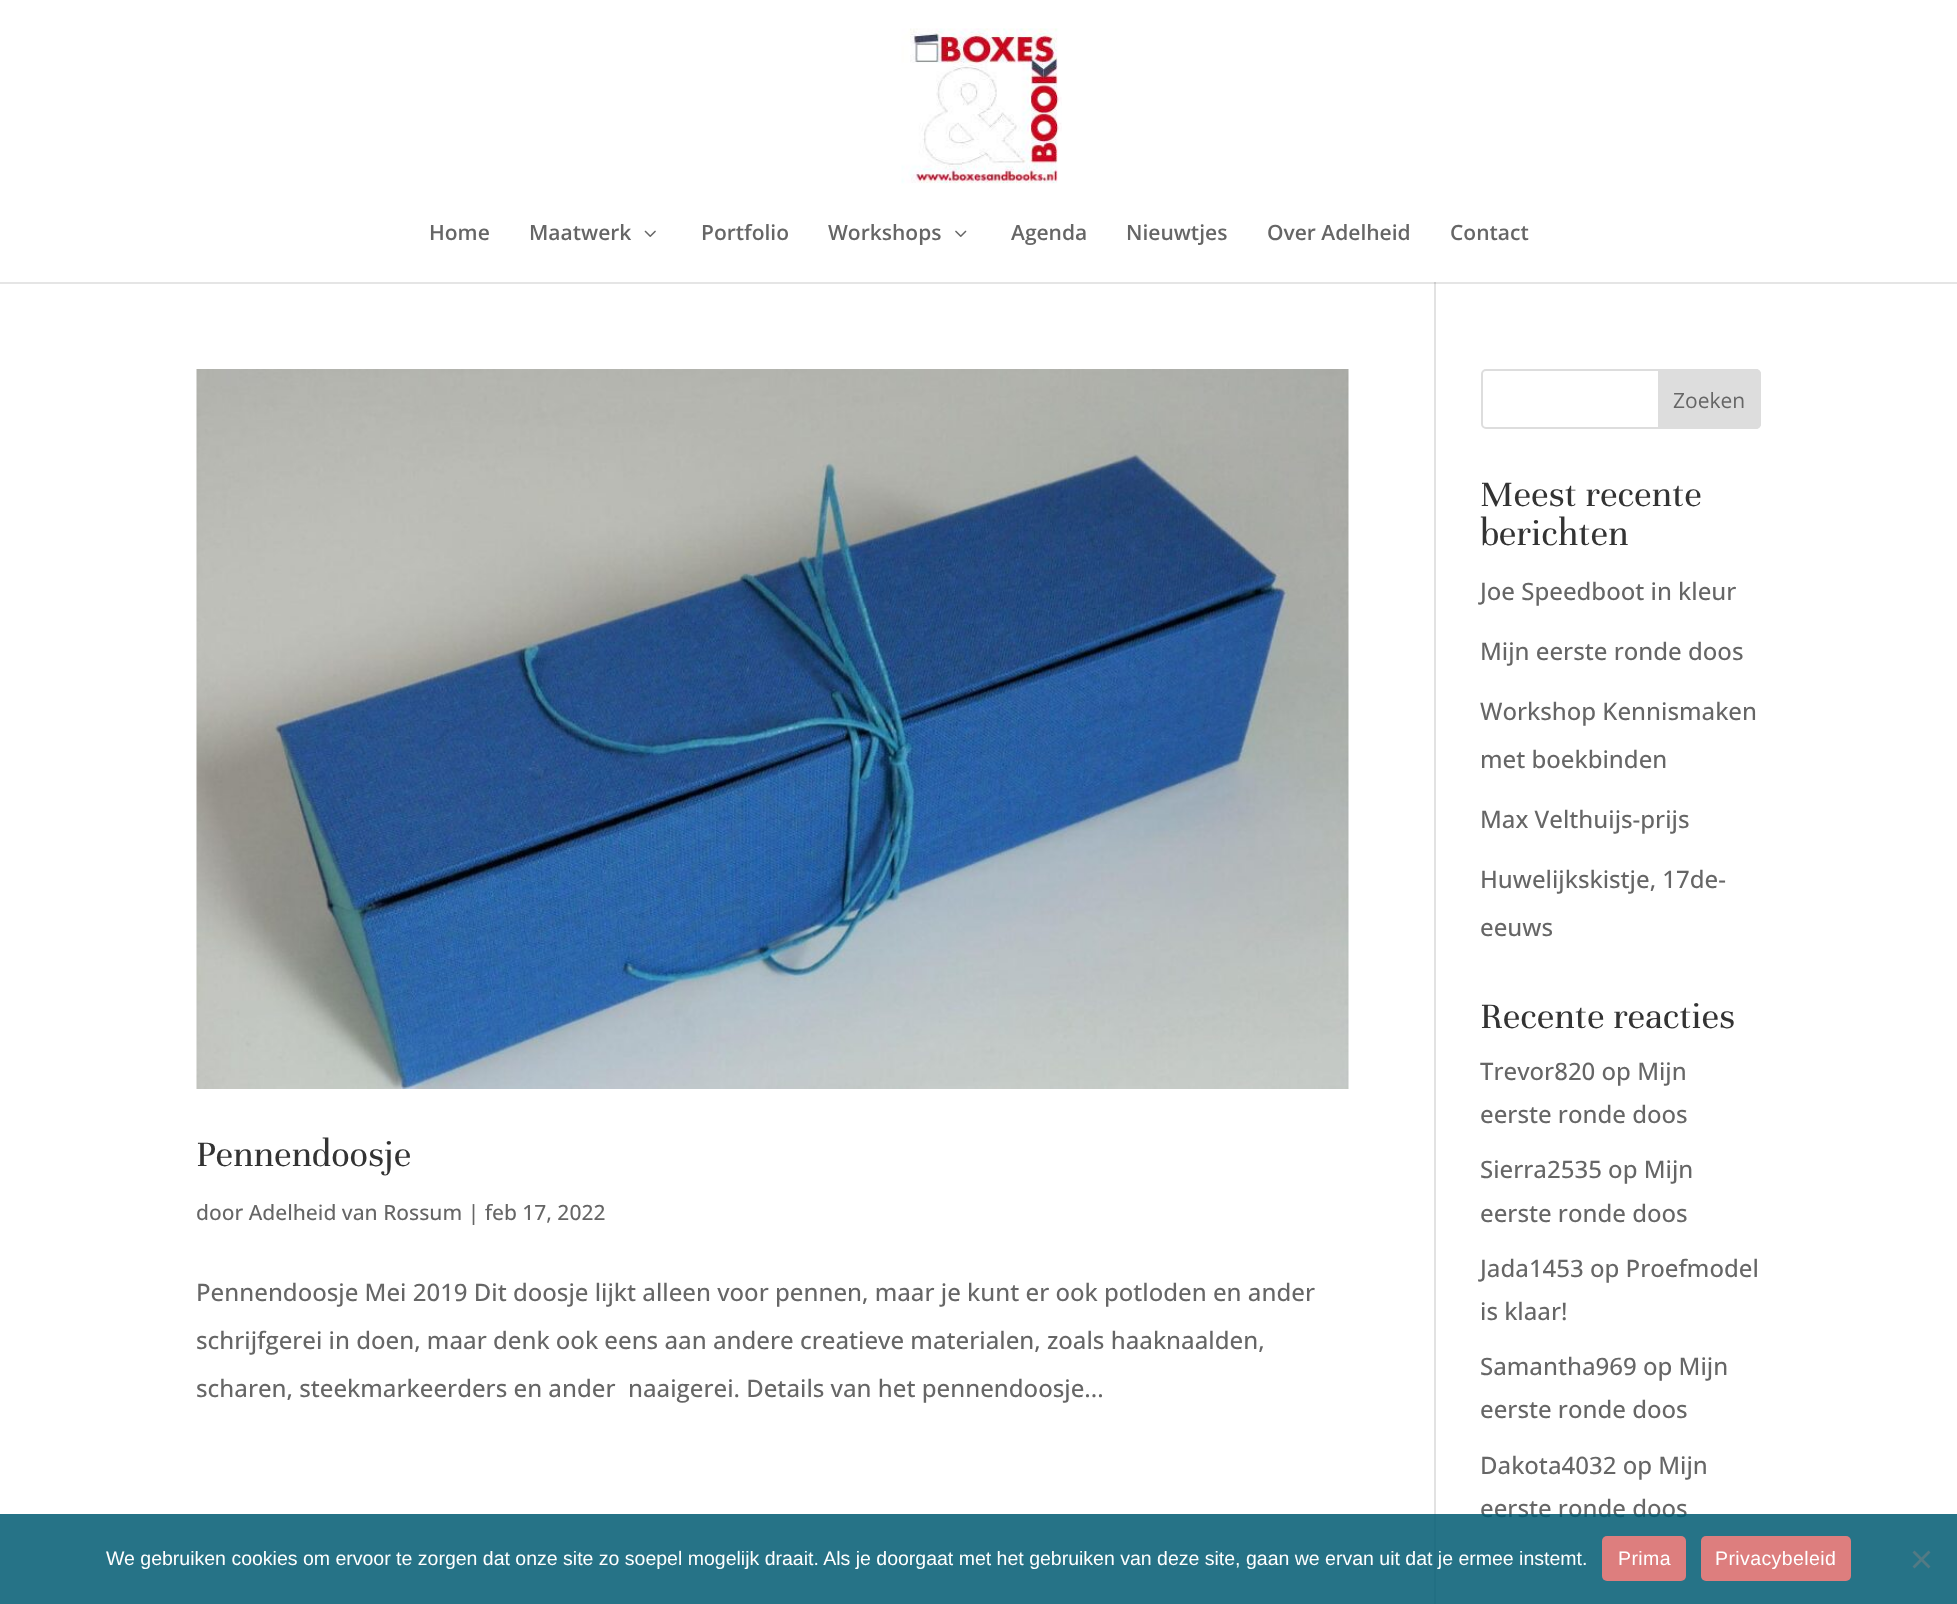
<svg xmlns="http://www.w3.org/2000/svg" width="1957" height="1604">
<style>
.a{font:600 21px Open Sans;fill:#666}
.b{font:39px Unna;fill:#333}
.c{font:500 21px Open Sans;fill:#666}
.d{font:500 24px Open Sans;fill:#666}
.e{font:21px Open Sans;fill:#666}
.f{font:19.5px Liberation Sans;fill:#fff}
.g{font:19.5px Liberation Sans;letter-spacing:0.4px;fill:#fff}
</style>
<rect width="100%" height="100%" fill="#fff"/>
<path fill="#e2e2e2" d="M1434 282h2v1322H1434z"/>
<path fill="#0000001a" d="M0 282v2h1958v-282v280z"/>
<image href="1.png" x="901" y="28" width="161" height="156"/>
<image href="2.png" x="644" y="230" width="12" height="7"/>
<image href="3.png" x="955" y="230" width="12" height="7"/>
<image href="4.png" x="196" y="369" width="1153" height="720"/>
<rect fill="none" stroke="#ddd" stroke-width="2" x="1482" y="370" width="278" height="58" rx="4"/>
<path fill="#ddd" stroke="#ddd" stroke-width="2" d="M1659 370h97c2 0 4 2 4 4v50c0 2-2 4-4 4h-97z"/>
<text class="a" x="429" y="240">Home</text>
<text class="a" x="529" y="240">Maatwerk</text>
<text class="a" x="701" y="240">Portfolio</text>
<text class="a" x="828" y="240">Workshops</text>
<text class="a" x="1011" y="240">Agenda</text>
<text class="a" x="1126" y="240">Nieuwtjes</text>
<text class="a" x="1267" y="240">Over Adelheid</text>
<text class="a" x="1450" y="240">Contact</text>
<text class="b" x="196" y="1166">Pennendoosje</text>
<text class="c" x="196" y="1220">door Adelheid van Rossum | feb 17, 2022</text>
<text class="d" x="196" y="1301">Pennendoosje Mei 2019 Dit doosje lijkt alleen voor pennen, maar je kunt er ook potloden en ander</text>
<text class="d" x="196" y="1349">schrijfgerei in doen, maar denk ook eens aan andere creatieve materialen, zoals haaknaalden,</text>
<text class="d" xml:space="preserve" x="196" y="1397">scharen, steekmarkeerders en ander  naaigerei. Details van het pennendoosje...</text>
<text class="e" x="1673" y="408">Zoeken</text>
<text class="b" x="1480" y="506">Meest recente</text>
<text class="b" x="1480" y="545">berichten</text>
<text class="d" x="1480" y="600">Joe Speedboot in kleur</text>
<text class="d" x="1480" y="660">Mijn eerste ronde doos</text>
<text class="d" x="1480" y="720">Workshop Kennismaken</text>
<text class="d" x="1480" y="768">met boekbinden</text>
<text class="d" x="1480" y="828">Max Velthuijs-prijs</text>
<text class="d" x="1480" y="888">Huwelijkskistje, 17de-</text>
<text class="d" x="1480" y="936">eeuws</text>
<text class="b" x="1480" y="1028">Recente reacties</text>
<text class="d" x="1480" y="1080">Trevor820 op Mijn</text>
<text class="d" x="1480" y="1123">eerste ronde doos</text>
<text class="d" x="1480" y="1178">Sierra2535 op Mijn</text>
<text class="d" x="1480" y="1222">eerste ronde doos</text>
<text class="d" x="1480" y="1277">Jada1453 op Proefmodel</text>
<text class="d" x="1480" y="1320">is klaar!</text>
<text class="d" x="1480" y="1375">Samantha969 op Mijn</text>
<text class="d" x="1480" y="1418">eerste ronde doos</text>
<text class="d" x="1480" y="1474">Dakota4032 op Mijn</text>
<text class="d" x="1480" y="1517">eerste ronde doos</text>
<path fill="#005b72d9" d="M0 1514h1957v90H0z"/>
<text class="f" x="106" y="1565">We gebruiken cookies om ervoor te zorgen dat onze site zo soepel mogelijk draait. Als je doorgaat met het gebruiken van deze site, gaan we ervan uit dat je ermee instemt.</text>
<rect fill="#dd7e7e" x="1602" y="1536" width="84" height="45" rx="5"/>
<text class="g" x="1618" y="1565">Prima</text>
<rect fill="#dd7e7e" x="1701" y="1536" width="150" height="45" rx="5"/>
<text class="g" x="1715" y="1565">Privacybeleid</text>
<path fill="#537a84" d="M1928.5 1550.5l2 2l-16 16l-2-2z"/>
<path fill="#537a84" d="M1912.5 1552.5l2-2l16 16l-2 2z"/>
</svg>
